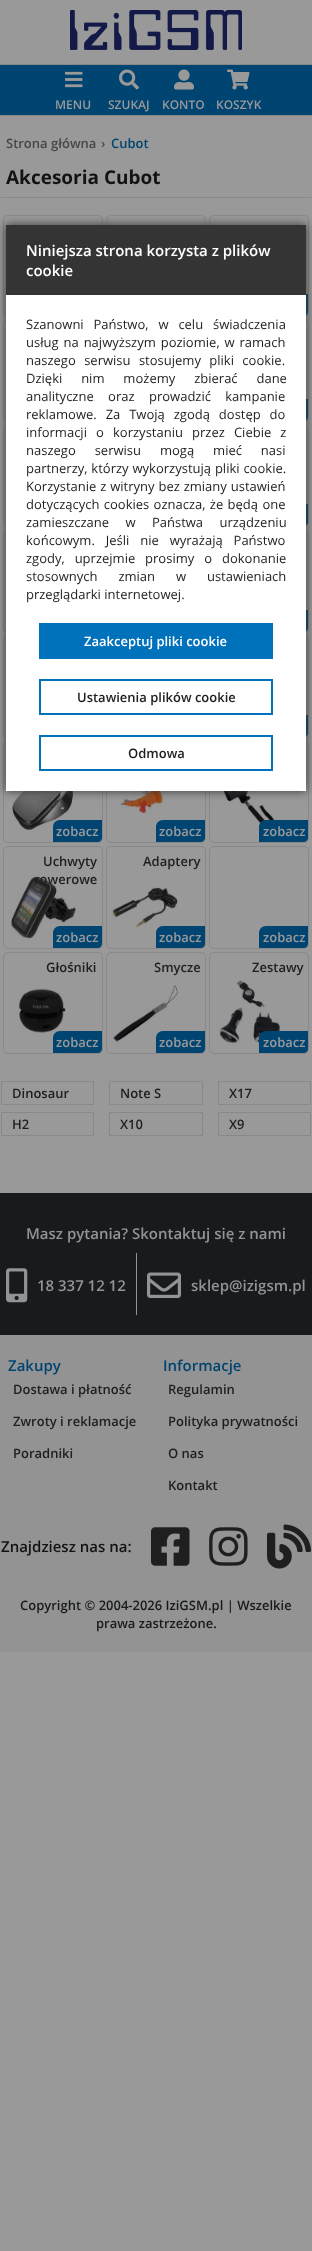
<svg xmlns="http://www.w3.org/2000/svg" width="312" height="2251">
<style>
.a{font:600 12px Open Sans;fill:#999}
.b{font:600 13px Open Sans;fill:#474747}
.c{font:600 13px Open Sans;fill:#004471}
.d{font:bold 19px Open Sans;fill:#131313}
.e{font:600 13px Open Sans;fill:#999}
.f{font:600 13px Open Sans;fill:#1f1f1f}
.g{font:600 15px Open Sans;fill:#fff}
.h{font:13px Open Sans;fill:#1f1f1f}
.i{font:600 13px Open Sans;fill:#fff}
.j{font:600 15px Open Sans;fill:#939393}
.k{font:600 15px Open Sans;fill:#004471}
.l{font:600 15px Open Sans;fill:#131313}
.m{font:600 13px Open Sans;fill:#181b1d}
</style>
<rect width="100%" height="100%" fill="#999"/>
<image href="1.png" x="70" y="10" width="172" height="40"/>
<path fill="#004471" d="M0 65h312v50H0z"/>
<path fill="#888" d="M0 64h312v1H0z"/>
<path fill="#888" d="M0 115h312v1H0z"/>
<image href="2.png" x="65" y="71" width="18" height="17"/>
<image href="3.png" x="119" y="69" width="20" height="21"/>
<image href="4.png" x="174" y="69" width="20" height="21"/>
<image href="5.png" x="227" y="69" width="23" height="21"/>
<path fill="#888" d="M1 197h310v1H1z"/>
<rect fill="none" stroke="#888" x="3.5" y="215.5" width="99" height="101" rx="4.5"/>
<rect fill="none" stroke="#888" x="106.5" y="215.5" width="99" height="101" rx="4.5"/>
<rect fill="none" stroke="#888" x="209.5" y="215.5" width="99" height="101" rx="4.5"/>
<path fill="#004471" d="M266 294h42v18c0 2-2 4-4 4h-45v-15c0-4 3-7 7-7z"/>
<rect fill="none" stroke="#888" x="3.5" y="320.5" width="99" height="101" rx="4.5"/>
<rect fill="none" stroke="#888" x="209.5" y="320.5" width="99" height="101" rx="4.5"/>
<path fill="#004471" d="M266 399h42v18c0 2-2 4-4 4h-45v-15c0-4 3-7 7-7z"/>
<rect fill="none" stroke="#888" x="3.5" y="425.5" width="99" height="101" rx="4.5"/>
<rect fill="none" stroke="#888" x="209.5" y="425.5" width="99" height="101" rx="4.5"/>
<path fill="#004471" d="M266 504h42v18c0 2-2 4-4 4h-45v-15c0-4 3-7 7-7z"/>
<rect fill="none" stroke="#888" x="3.5" y="530.5" width="99" height="102" rx="4.5"/>
<rect fill="none" stroke="#888" x="209.5" y="530.5" width="99" height="102" rx="4.5"/>
<path fill="#004471" d="M266 610h42v18c0 2-2 4-4 4h-45v-15c0-4 3-7 7-7z"/>
<rect fill="none" stroke="#888" x="3.5" y="636.5" width="99" height="101" rx="4.5"/>
<rect fill="none" stroke="#888" x="209.5" y="636.5" width="99" height="101" rx="4.5"/>
<path fill="#004471" d="M266 715h42v18c0 2-2 4-4 4h-45v-15c0-4 3-7 7-7z"/>
<rect fill="none" stroke="#888" x="3.5" y="741.5" width="99" height="101" rx="4.5"/>
<image href="6.png" x="12" y="791" width="61" height="40"/>
<path fill="#004471" d="M60 820h42v18c0 2-2 4-4 4h-45v-15c0-4 3-7 7-7z"/>
<rect fill="none" stroke="#888" x="106.5" y="741.5" width="99" height="101" rx="4.5"/>
<image href="7.png" x="120" y="791" width="46" height="23"/>
<path fill="#004471" d="M163 820h42v18c0 2-2 4-4 4h-45v-15c0-4 3-7 7-7z"/>
<rect fill="none" stroke="#888" x="209.5" y="741.5" width="99" height="101" rx="4.5"/>
<image href="8.png" x="222" y="791" width="56" height="42"/>
<path fill="#004471" d="M266 820h42v18c0 2-2 4-4 4h-45v-15c0-4 3-7 7-7z"/>
<rect fill="none" stroke="#888" x="3.5" y="846.5" width="99" height="102" rx="4.5"/>
<image href="9.png" x="11" y="876" width="65" height="63"/>
<path fill="#004471" d="M60 926h42v18c0 2-2 4-4 4h-45v-15c0-4 3-7 7-7z"/>
<rect fill="none" stroke="#888" x="106.5" y="846.5" width="99" height="102" rx="4.5"/>
<image href="10.png" x="112" y="887" width="66" height="43"/>
<path fill="#004471" d="M163 926h42v18c0 2-2 4-4 4h-45v-15c0-4 3-7 7-7z"/>
<rect fill="none" stroke="#888" x="209.5" y="846.5" width="99" height="102" rx="4.5"/>
<path fill="#004471" d="M266 926h42v18c0 2-2 4-4 4h-45v-15c0-4 3-7 7-7z"/>
<rect fill="none" stroke="#888" x="3.5" y="952.5" width="99" height="101" rx="4.5"/>
<image href="11.png" x="18" y="988" width="48" height="45"/>
<path fill="#004471" d="M60 1031h42v18c0 2-2 4-4 4h-45v-15c0-4 3-7 7-7z"/>
<rect fill="none" stroke="#888" x="106.5" y="952.5" width="99" height="101" rx="4.5"/>
<image href="12.png" x="113" y="985" width="65" height="59"/>
<path fill="#004471" d="M163 1031h42v18c0 2-2 4-4 4h-45v-15c0-4 3-7 7-7z"/>
<rect fill="none" stroke="#888" x="209.5" y="952.5" width="99" height="101" rx="4.5"/>
<image href="13.png" x="218" y="980" width="62" height="64"/>
<path fill="#004471" d="M266 1031h42v18c0 2-2 4-4 4h-45v-15c0-4 3-7 7-7z"/>
<path fill="none" stroke="#888" d="M1.5 1081.5h92v23H1.5z"/>
<path fill="none" stroke="#888" d="M109.5 1081.5h93v23H109.5z"/>
<path fill="none" stroke="#888" d="M218.5 1081.5h92v23H218.5z"/>
<path fill="none" stroke="#888" d="M1.5 1112.5h92v23H1.5z"/>
<path fill="none" stroke="#888" d="M109.5 1112.5h93v23H109.5z"/>
<path fill="none" stroke="#888" d="M218.5 1112.5h92v23H218.5z"/>
<path fill="#343434" filter="blur(5px)" d="M6 225h300v566H6z"/>
<path fill="#fff" d="M6 295h300v496H6z"/>
<path fill="#343434" d="M6 225h300v70H6z"/>
<path fill="#0072bc" d="M39 623h234v36H39z"/>
<path fill="none" stroke="#0072bc" stroke-width="2" d="M40 680h232v34H40z"/>
<path fill="none" stroke="#0072bc" stroke-width="2" d="M40 736h232v34H40z"/>
<path fill="#939393" d="M0 1335h312v317H0z"/>
<path fill="#181b1d" d="M0 1193h312v142H0z"/>
<path fill="#939393" d="M136 1253h1v62H136z"/>
<image href="14.png" x="6" y="1268" width="22" height="35"/>
<image href="15.png" x="147" y="1272" width="34" height="26"/>
<image href="16.png" x="151" y="1527" width="39" height="39"/>
<image href="17.png" x="209" y="1527" width="39" height="39"/>
<image href="18.png" x="267" y="1524" width="44" height="45"/>
<text class="a" x="55" y="109">MENU</text>
<text class="a" x="108" y="109">SZUKAJ</text>
<text class="a" x="162" y="109">KONTO</text>
<text class="a" x="216" y="109">KOSZYK</text>
<text class="b" x="6" y="148">Strona główna</text>
<text class="b" x="101" y="148">›</text>
<text class="c" x="111" y="148">Cubot</text>
<text class="d" x="6" y="184">Akcesoria Cubot</text>
<text class="e" x="56" y="836">zobacz</text>
<text class="e" x="159" y="836">zobacz</text>
<text class="e" x="263" y="836">zobacz</text>
<text class="f" x="43" y="866">Uchwyty</text>
<text class="f" x="34" y="884">rowerowe</text>
<text class="e" x="56" y="942">zobacz</text>
<text class="f" x="143" y="866">Adaptery</text>
<text class="e" x="159" y="942">zobacz</text>
<text class="e" x="263" y="942">zobacz</text>
<text class="f" x="46" y="972">Głośniki</text>
<text class="e" x="56" y="1047">zobacz</text>
<text class="f" x="154" y="972">Smycze</text>
<text class="e" x="159" y="1047">zobacz</text>
<text class="f" x="252" y="972">Zestawy</text>
<text class="e" x="263" y="1047">zobacz</text>
<text class="f" x="12" y="1098">Dinosaur</text>
<text class="f" x="120" y="1098">Note S</text>
<text class="f" x="229" y="1098">X17</text>
<text class="f" x="12" y="1129">H2</text>
<text class="f" x="120" y="1129">X10</text>
<text class="f" x="229" y="1129">X9</text>
<text class="g" x="26" y="256">Niniejsza strona korzysta z plików</text>
<text class="g" x="26" y="276">cookie</text>
<text class="h" x="26" y="329" word-spacing="6.5">Szanowni Państwo, w celu świadczenia</text>
<text class="h" x="26" y="347" word-spacing="1.5">usług na najwyższym poziomie, w ramach</text>
<text class="h" x="26" y="365" word-spacing="5">naszego serwisu stosujemy pliki cookie.</text>
<text class="h" x="26" y="383" word-spacing="15.5">Dzięki nim możemy zbierać dane</text>
<text class="h" x="26" y="401" word-spacing="11">analityczne oraz prowadzić kampanie</text>
<text class="h" x="26" y="419" word-spacing="5.5">reklamowe. Za Twoją zgodą dostęp do</text>
<text class="h" x="26" y="437" word-spacing="5.75">informacji o korzystaniu przez Ciebie z</text>
<text class="h" x="26" y="455" word-spacing="15.5">naszego serwisu mogą mieć nasi</text>
<text class="h" x="26" y="473" word-spacing="0.5">partnerzy, którzy wykorzystują pliki cookie.</text>
<text class="h" x="26" y="491" word-spacing="0.5">Korzystanie z witryny bez zmiany ustawień</text>
<text class="h" x="26" y="509" word-spacing="1">dotyczących cookies oznacza, że będą one</text>
<text class="h" x="26" y="527" word-spacing="13">zamieszczane w Państwa urządzeniu</text>
<text class="h" x="26" y="545" word-spacing="7.5">końcowym. Jeśli nie wyrażają Państwo</text>
<text class="h" x="26" y="563" word-spacing="6.5">zgody, uprzejmie prosimy o dokonanie</text>
<text class="h" x="26" y="581" word-spacing="17.5">stosownych zmian w ustawieniach</text>
<text class="h" x="26" y="599">przeglądarki internetowej.</text>
<text class="i" x="84" y="646">Zaakceptuj pliki cookie</text>
<text class="f" x="77" y="702">Ustawienia plików cookie</text>
<text class="f" x="128" y="758">Odmowa</text>
<text class="j" x="26" y="1239">Masz pytania? Skontaktuj się z nami</text>
<text class="j" x="37" y="1291">18 337 12 12</text>
<text class="j" x="191" y="1291">sklep@izigsm.pl</text>
<text class="k" x="8" y="1371">Zakupy</text>
<text class="f" x="13" y="1394">Dostawa i płatność</text>
<text class="f" x="13" y="1426">Zwroty i reklamacje</text>
<text class="f" x="13" y="1458">Poradniki</text>
<text class="k" x="163" y="1371">Informacje</text>
<text class="f" x="168" y="1394">Regulamin</text>
<text class="f" x="168" y="1426">Polityka prywatności</text>
<text class="f" x="168" y="1458">O nas</text>
<text class="f" x="168" y="1490">Kontakt</text>
<text class="l" x="1" y="1552">Znajdziesz nas na:</text>
<text class="m" x="20" y="1610">Copyright © 2004-2026 IziGSM.pl | Wszelkie</text>
<text class="m" x="96" y="1628">prawa zastrzeżone.</text>
</svg>
